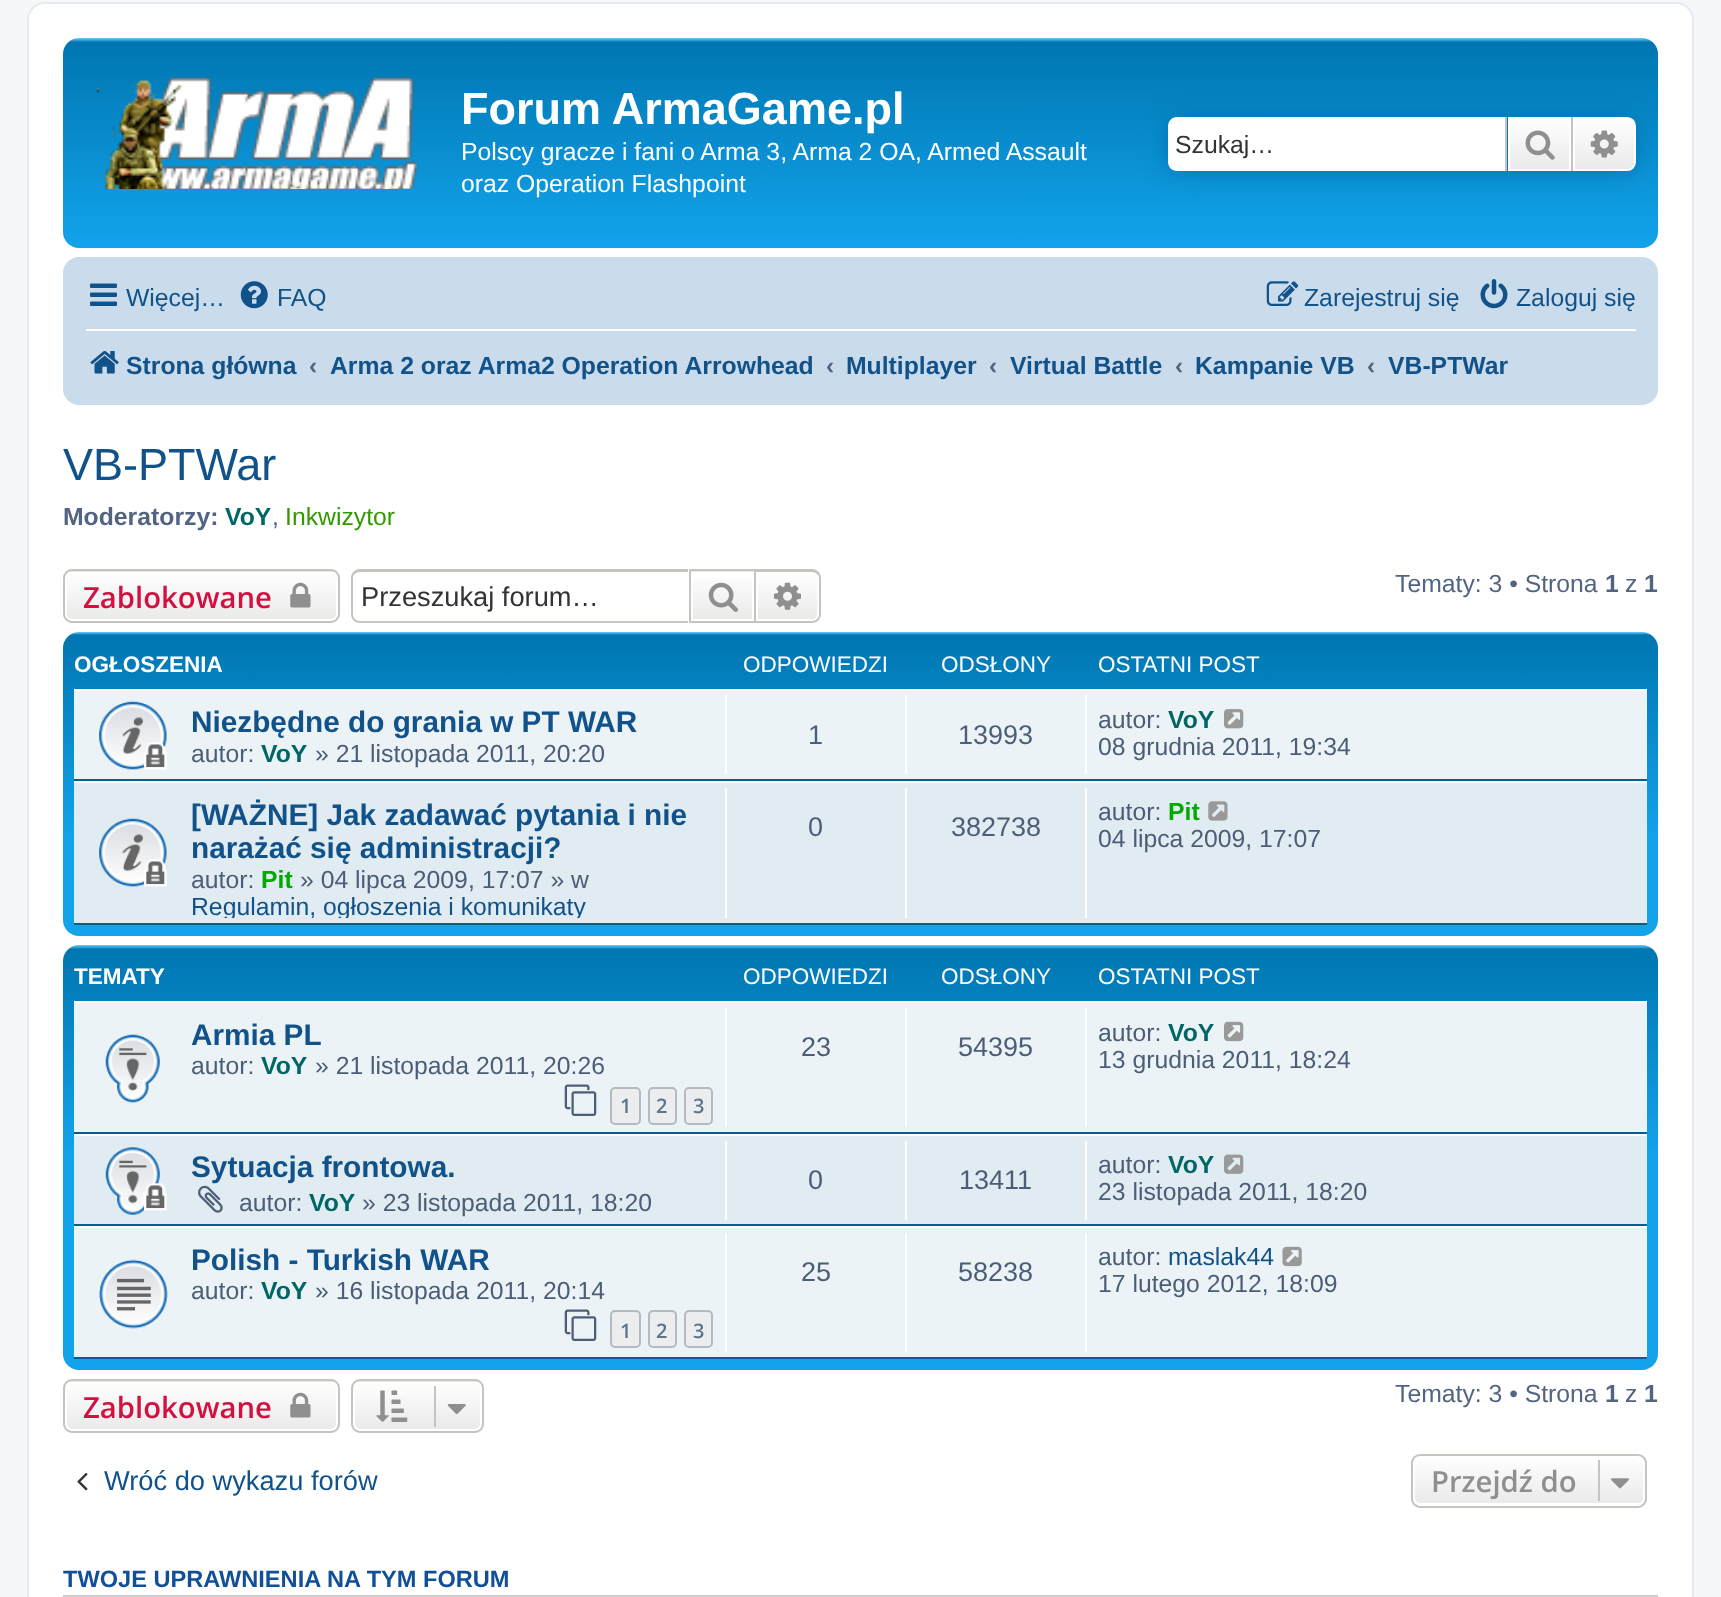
<svg xmlns="http://www.w3.org/2000/svg" width="1721" height="1597">
<style>
.a{font:bold 45px Liberation Sans;fill:#fff}
.b{font:24.75px Liberation Sans;fill:#fff}
.c{font:24.75px Liberation Sans;fill:#333}
.d{font:24.75px Liberation Sans;fill:#105289}
.e{font:bold 24.75px Liberation Sans;fill:#105289}
.f{font:bold 24.75px Liberation Sans;fill:#536482}
.g{font:45px Liberation Sans;fill:#105289}
.h{font:bold 24.75px Liberation Sans;fill:#066}
.i{font:24.75px Liberation Sans;fill:#536482}
.j{font:24.75px Liberation Sans;fill:#390}
.k{font:600 29.25px Open Sans;fill:#d31141}
.l{font:27.25px Liberation Sans;fill:#333}
.m{font:bold 22.5px Liberation Sans;fill:#fff}
.n{font:22.5px Liberation Sans;fill:#fff}
.o{font:bold 29.75px Liberation Sans;fill:#105289}
.p{font:24.75px Liberation Sans;fill:#4c5d77}
.q{font:27px Liberation Sans;fill:#4c5d77}
.r{font:bold 24.75px Liberation Sans;fill:#0a0}
.s{font:600 20px Open Sans;fill:#5c758c}
.t{font:27.25px Liberation Sans;fill:#105289}
.u{font:600 29.25px Open Sans;fill:#8f8f8f}
.v{font:bold 23.6px Liberation Sans;fill:#115098}
</style>
<defs>
<linearGradient id="g1" gradientUnits="userSpaceOnUse" x1="861" y1="38" x2="861" y2="248"><stop offset="0" stop-color="#6aceff"/><stop offset="0.02" stop-color="#0076b1"/><stop offset="0.99" stop-color="#12a3eb"/><stop offset="1" stop-color="#12a3eb"/></linearGradient>
<linearGradient id="g2" gradientUnits="userSpaceOnUse" x1="1539" y1="117" x2="1539" y2="171"><stop offset="0" stop-color="#fff"/><stop offset="1" stop-color="#e9e9e9"/></linearGradient>
<linearGradient id="g3" gradientUnits="userSpaceOnUse" x1="1604" y1="117" x2="1604" y2="171"><stop offset="0" stop-color="#fff"/><stop offset="1" stop-color="#e9e9e9"/></linearGradient>
<clipPath id="clip1"><rect x="63" y="569" width="277" height="54" rx="9"/></clipPath>
<linearGradient id="g4" gradientUnits="userSpaceOnUse" x1="201" y1="522" x2="201" y2="572"><stop offset="0" stop-color="#fff"/><stop offset="1" stop-color="#e9e9e9"/></linearGradient>
<linearGradient id="g5" gradientUnits="userSpaceOnUse" x1="201" y1="572" x2="201" y2="621"><stop offset="0" stop-color="#fff"/><stop offset="1" stop-color="#e9e9e9"/></linearGradient>
<linearGradient id="g6" gradientUnits="userSpaceOnUse" x1="722" y1="572" x2="722" y2="621"><stop offset="0" stop-color="#fff"/><stop offset="1" stop-color="#e9e9e9"/></linearGradient>
<linearGradient id="g7" gradientUnits="userSpaceOnUse" x1="788" y1="572" x2="788" y2="621"><stop offset="0" stop-color="#fff"/><stop offset="1" stop-color="#e9e9e9"/></linearGradient>
<linearGradient id="g8" gradientUnits="userSpaceOnUse" x1="861" y1="632" x2="861" y2="936"><stop offset="0" stop-color="#6aceff"/><stop offset="0.01" stop-color="#0076b1"/><stop offset="0.68" stop-color="#12a3eb"/><stop offset="1" stop-color="#12a3eb"/></linearGradient>
<linearGradient id="g9" gradientUnits="userSpaceOnUse" x1="861" y1="945" x2="861" y2="1370"><stop offset="0" stop-color="#6aceff"/><stop offset="0.01" stop-color="#0076b1"/><stop offset="0.49" stop-color="#12a3eb"/><stop offset="1" stop-color="#12a3eb"/></linearGradient>
<clipPath id="clip2"><rect x="63" y="1379" width="277" height="54" rx="9"/></clipPath>
<linearGradient id="g10" gradientUnits="userSpaceOnUse" x1="201" y1="1332" x2="201" y2="1382"><stop offset="0" stop-color="#fff"/><stop offset="1" stop-color="#e9e9e9"/></linearGradient>
<linearGradient id="g11" gradientUnits="userSpaceOnUse" x1="201" y1="1382" x2="201" y2="1431"><stop offset="0" stop-color="#fff"/><stop offset="1" stop-color="#e9e9e9"/></linearGradient>
<clipPath id="clip3"><rect x="351" y="1379" width="133" height="54" rx="9"/></clipPath>
<linearGradient id="g12" gradientUnits="userSpaceOnUse" x1="417" y1="1332" x2="417" y2="1382"><stop offset="0" stop-color="#fff"/><stop offset="1" stop-color="#e9e9e9"/></linearGradient>
<linearGradient id="g13" gradientUnits="userSpaceOnUse" x1="417" y1="1382" x2="417" y2="1431"><stop offset="0" stop-color="#fff"/><stop offset="1" stop-color="#e9e9e9"/></linearGradient>
<clipPath id="clip4"><rect x="1411" y="1454" width="236" height="54" rx="9"/></clipPath>
<linearGradient id="g14" gradientUnits="userSpaceOnUse" x1="1529" y1="1456" x2="1529" y2="1505"><stop offset="0" stop-color="#fff"/><stop offset="1" stop-color="#e9e9e9"/></linearGradient>
<clipPath id="clip5"><path d="M74 788h1573v130H74z"/></clipPath>
</defs>
<rect width="100%" height="100%" fill="#f5f7fa"/>
<rect fill="#fff" stroke="#e6e9ed" stroke-width="2" x="28" y="3" width="1665" height="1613" rx="17"/>
<rect fill="url(#g1)" x="63" y="38" width="1595" height="210" rx="16"/>
<image href="1.png" x="97" y="76" width="322" height="113"/>
<rect fill="#0075b0" filter="blur(11px)" x="1168" y="117" width="468" height="54" rx="9"/>
<path fill="#fff" d="M1177 117h328v54h-328c-5 0-9-4-9-9v-36c0-5 4-9 9-9z"/>
<path fill="url(#g2)" d="M1510 119h59v50H1510z"/>
<path fill="none" stroke="#fff" stroke-width="2" d="M1509 118h61v52H1509z"/>
<path fill="#c7c3bf" d="M1571 117h2v54H1571z"/>
<path fill="#c7c3bf" d="M1505 117h2v54H1505z"/>
<image href="2.png" x="1525" y="130" width="30" height="30"/>
<path fill="url(#g3)" stroke="#fff" stroke-width="2" d="M1574 118h53c4.5 0 8 3.5 8 8v36c0 4.5-3.5 8-8 8h-53z"/>
<image href="3.png" x="1590" y="130" width="28" height="28"/>
<rect fill="#cadceb" x="63" y="257" width="1595" height="148" rx="16"/>
<image href="4.png" x="90" y="283" width="27" height="23"/>
<image href="5.png" x="240" y="281" width="28" height="28"/>
<image href="6.png" x="1266" y="281" width="33" height="25"/>
<image href="7.png" x="1480" y="279" width="28" height="30"/>
<path fill="#fff" d="M86 329h1550v2H86z"/>
<image href="8.png" x="90" y="351" width="29" height="23"/>
<g clip-path="url(#clip1)">
<path fill="url(#g4)" d="M63 569h277v3H63z"/>
<path fill="url(#g5)" d="M63 572h277v49H63z"/>
</g>
<rect fill="none" stroke="#fff" stroke-width="2" x="66" y="573" width="271" height="47" rx="6"/>
<rect fill="none" stroke="#c7c3bf" stroke-width="2" x="64" y="570" width="275" height="52" rx="8"/>
<image href="9.png" x="290" y="582" width="21" height="26"/>
<path fill="#c7c3bf" fill-rule="evenodd" d="M360 569h328v54h-328c-5 0-9-4-9-9v-36c0-5 4-9 9-9zm0 3h328v49h-328c-4 0-7-3-7-7v-36c0-3 3-6 7-6z"/>
<path fill="#e9e9e9" d="M691 571h63v1H691z"/>
<path fill="url(#g6)" d="M693 578h59v41H693z"/>
<path fill="none" stroke="#c7c3bf" stroke-width="2" d="M690 570h65v52H690z"/>
<image href="10.png" x="708" y="582" width="30" height="30"/>
<path fill="url(#g7)" stroke="#fff" stroke-width="2" d="M757 573h55c3.5 0 6 2.5 6 6v35c0 3.5-2.5 6-6 6h-55z"/>
<path fill="#c7c3bf" fill-rule="evenodd" d="M756 569h56c5 0 9 4 9 9v36c0 5-4 9-9 9h-56zm0 3h56c4 0 7 3 7 6v36c0 4-3 7-7 7h-56z"/>
<image href="11.png" x="774" y="582" width="27" height="28"/>
<rect fill="url(#g8)" x="63" y="632" width="1595" height="304" rx="16"/>
<path fill="#ecf3f7" d="M74 691h1573v88H74z"/>
<path fill="#fff" d="M74 689h1573v2H74z"/>
<path fill="#00608f" d="M74 779h1573v2H74z"/>
<image href="12.png" x="99" y="701" width="68" height="69"/>
<path fill="#fff" d="M725 695h2v79H725z"/>
<path fill="#fff" d="M905 695h2v79H905z"/>
<path fill="#fff" d="M1085 695h2v79H1085z"/>
<image href="13.png" x="1224" y="709" width="20" height="20"/>
<path fill="#e1ebf2" d="M74 783h1573v140H74z"/>
<path fill="#fff" d="M74 781h1573v2H74z"/>
<path fill="#00608f" d="M74 923h1573v2H74z"/>
<image href="14.png" x="99" y="818" width="68" height="69"/>
<path fill="#fff" d="M725 788h2v130H725z"/>
<path fill="#fff" d="M905 788h2v130H905z"/>
<path fill="#fff" d="M1085 788h2v130H1085z"/>
<image href="15.png" x="1208" y="801" width="20" height="20"/>
<rect fill="url(#g9)" x="63" y="945" width="1595" height="425" rx="16"/>
<path fill="#ecf3f7" d="M74 1003h1573v129H74z"/>
<path fill="#fff" d="M74 1001h1573v2H74z"/>
<path fill="#00608f" d="M74 1132h1573v2H74z"/>
<image href="16.png" x="105" y="1034" width="55" height="69"/>
<image href="17.png" x="564" y="1084" width="33" height="32"/>
<rect fill="#ecedee" stroke="#b4bac0" stroke-width="2" x="611" y="1088" width="29" height="36" rx="4"/>
<rect fill="#ecedee" stroke="#b4bac0" stroke-width="2" x="649" y="1088" width="27" height="36" rx="4"/>
<rect fill="#ecedee" stroke="#b4bac0" stroke-width="2" x="685" y="1088" width="27" height="36" rx="4"/>
<path fill="#fff" d="M725 1008h2v119H725z"/>
<path fill="#fff" d="M905 1008h2v119H905z"/>
<path fill="#fff" d="M1085 1008h2v119H1085z"/>
<image href="18.png" x="1224" y="1021" width="20" height="21"/>
<path fill="#e1ebf2" d="M74 1136h1573v88H74z"/>
<path fill="#fff" d="M74 1134h1573v2H74z"/>
<path fill="#00608f" d="M74 1224h1573v2H74z"/>
<image href="19.png" x="105" y="1147" width="62" height="68"/>
<image href="20.png" x="198" y="1185" width="25" height="28"/>
<path fill="#fff" d="M725 1141h2v79H725z"/>
<path fill="#fff" d="M905 1141h2v79H905z"/>
<path fill="#fff" d="M1085 1141h2v79H1085z"/>
<image href="21.png" x="1224" y="1154" width="20" height="20"/>
<path fill="#ecf3f7" d="M74 1228h1573v129H74z"/>
<path fill="#fff" d="M74 1226h1573v2H74z"/>
<path fill="#00608f" d="M74 1357h1573v2H74z"/>
<image href="22.png" x="99" y="1259" width="69" height="70"/>
<image href="17.png" x="564" y="1309" width="33" height="32"/>
<rect fill="#ecedee" stroke="#b4bac0" stroke-width="2" x="611" y="1311" width="29" height="36" rx="4"/>
<rect fill="#ecedee" stroke="#b4bac0" stroke-width="2" x="649" y="1311" width="27" height="36" rx="4"/>
<rect fill="#ecedee" stroke="#b4bac0" stroke-width="2" x="685" y="1311" width="27" height="36" rx="4"/>
<path fill="#fff" d="M725 1233h2v119H725z"/>
<path fill="#fff" d="M905 1233h2v119H905z"/>
<path fill="#fff" d="M1085 1233h2v119H1085z"/>
<image href="23.png" x="1282" y="1246" width="20" height="21"/>
<g clip-path="url(#clip2)">
<path fill="url(#g10)" d="M63 1379h277v3H63z"/>
<path fill="url(#g11)" d="M63 1382h277v49H63z"/>
</g>
<rect fill="none" stroke="#fff" stroke-width="2" x="66" y="1383" width="271" height="47" rx="6"/>
<rect fill="none" stroke="#c7c3bf" stroke-width="2" x="64" y="1380" width="275" height="52" rx="8"/>
<image href="9.png" x="290" y="1392" width="21" height="26"/>
<g clip-path="url(#clip3)">
<path fill="url(#g12)" d="M351 1379h133v3H351z"/>
<path fill="url(#g13)" d="M351 1382h133v49H351z"/>
</g>
<rect fill="none" stroke="#fff" stroke-width="2" x="354" y="1383" width="127" height="47" rx="6"/>
<rect fill="none" stroke="#c7c3bf" stroke-width="2" x="352" y="1380" width="131" height="52" rx="8"/>
<image href="24.png" x="376" y="1390" width="32" height="32"/>
<path fill="#c7c3bf" d="M434 1386h2v41H434z"/>
<image href="25.png" x="447" y="1404" width="19" height="11"/>
<image href="26.png" x="77" y="1472" width="11" height="19"/>
<g clip-path="url(#clip4)">
<path fill="url(#g14)" d="M1411 1456h236v49H1411z"/>
</g>
<rect fill="none" stroke="#fff" stroke-width="2" x="1414" y="1457" width="230" height="47" rx="6"/>
<rect fill="none" stroke="#c7c3bf" stroke-width="2" x="1412" y="1455" width="234" height="52" rx="8"/>
<path fill="#c7c3bf" d="M1598 1460h2v41H1598z"/>
<image href="27.png" x="1611" y="1478" width="18" height="11"/>
<path fill="#ccc" d="M63 1595h1595v2H63z"/>
<text class="a" x="461" y="124">Forum ArmaGame.pl</text>
<text class="b" x="461" y="160">Polscy gracze i fani o Arma 3, Arma 2 OA, Armed Assault</text>
<text class="b" x="461" y="192">oraz Operation Flashpoint</text>
<text class="c" x="1175" y="153">Szukaj…</text>
<text class="d" x="126" y="306">Więcej…</text>
<text class="d" x="277" y="306">FAQ</text>
<text class="d" x="1304" y="306">Zarejestruj się</text>
<text class="d" x="1516" y="306">Zaloguj się</text>
<text class="e" x="126" y="374">Strona główna</text>
<text class="f" x="309" y="374">‹</text>
<text class="e" x="330" y="374">Arma 2 oraz Arma2 Operation Arrowhead</text>
<text class="f" x="826" y="374">‹</text>
<text class="e" x="846" y="374">Multiplayer</text>
<text class="f" x="989" y="374">‹</text>
<text class="e" x="1010" y="374">Virtual Battle</text>
<text class="f" x="1175" y="374">‹</text>
<text class="e" x="1195" y="374">Kampanie VB</text>
<text class="f" x="1367" y="374">‹</text>
<text class="e" x="1388" y="374">VB-PTWar</text>
<text class="g" x="63" y="480">VB-PTWar</text>
<text class="f" x="63" y="525">Moderatorzy:</text>
<text class="h" x="225" y="525">VoY</text>
<text class="i" x="272" y="525">,</text>
<text class="j" x="285" y="525">Inkwizytor</text>
<text class="k" x="83" y="608">Zablokowane</text>
<text class="l" x="361" y="606">Przeszukaj forum…</text>
<text class="i" x="1395" y="592">Tematy: 3 • Strona</text>
<text class="f" x="1605" y="592">1</text>
<text class="i" x="1625" y="592">z</text>
<text class="f" x="1644" y="592">1</text>
<text class="m" x="74" y="672">OGŁOSZENIA</text>
<text class="n" x="743" y="672">ODPOWIEDZI</text>
<text class="n" x="941" y="672">ODSŁONY</text>
<text class="n" x="1098" y="672">OSTATNI POST</text>
<text class="o" x="191" y="732">Niezbędne do grania w PT WAR</text>
<text class="p" x="191" y="762">autor:</text>
<text class="h" x="261" y="762">VoY</text>
<text class="p" x="315" y="762">» 21 listopada 2011, 20:20</text>
<text class="q" x="808" y="744">1</text>
<text class="q" x="958" y="744">13993</text>
<text class="p" x="1098" y="728">autor:</text>
<text class="h" x="1168" y="728">VoY</text>
<text class="p" x="1098" y="755">08 grudnia 2011, 19:34</text>
<text class="o" x="191" y="825">[WAŻNE] Jak zadawać pytania i nie</text>
<text class="o" x="191" y="858">narażać się administracji?</text>
<text class="p" x="191" y="888">autor:</text>
<text class="r" x="261" y="888">Pit</text>
<text class="p" x="300" y="888">» 04 lipca 2009, 17:07 » w</text>
<g clip-path="url(#clip5)">
<text class="d" x="191" y="915">Regulamin, ogłoszenia i komunikaty</text>
</g>
<text class="q" x="808" y="836">0</text>
<text class="q" x="951" y="836">382738</text>
<text class="p" x="1098" y="820">autor:</text>
<text class="r" x="1168" y="820">Pit</text>
<text class="p" x="1098" y="847">04 lipca 2009, 17:07</text>
<text class="m" x="74" y="984">TEMATY</text>
<text class="n" x="743" y="984">ODPOWIEDZI</text>
<text class="n" x="941" y="984">ODSŁONY</text>
<text class="n" x="1098" y="984">OSTATNI POST</text>
<text class="o" x="191" y="1045">Armia PL</text>
<text class="p" x="191" y="1074">autor:</text>
<text class="h" x="261" y="1074">VoY</text>
<text class="p" x="315" y="1074">» 21 listopada 2011, 20:26</text>
<text class="s" x="620" y="1113">1</text>
<text class="s" x="656" y="1113">2</text>
<text class="s" x="693" y="1113">3</text>
<text class="q" x="801" y="1056">23</text>
<text class="q" x="958" y="1056">54395</text>
<text class="p" x="1098" y="1041">autor:</text>
<text class="h" x="1168" y="1041">VoY</text>
<text class="p" x="1098" y="1068">13 grudnia 2011, 18:24</text>
<text class="o" x="191" y="1177">Sytuacja frontowa.</text>
<text class="p" x="239" y="1211">autor:</text>
<text class="h" x="309" y="1211">VoY</text>
<text class="p" x="362" y="1211">» 23 listopada 2011, 18:20</text>
<text class="q" x="808" y="1189">0</text>
<text class="q" x="959" y="1189">13411</text>
<text class="p" x="1098" y="1173">autor:</text>
<text class="h" x="1168" y="1173">VoY</text>
<text class="p" x="1098" y="1200">23 listopada 2011, 18:20</text>
<text class="o" x="191" y="1270">Polish - Turkish WAR</text>
<text class="p" x="191" y="1299">autor:</text>
<text class="h" x="261" y="1299">VoY</text>
<text class="p" x="315" y="1299">» 16 listopada 2011, 20:14</text>
<text class="s" x="620" y="1338">1</text>
<text class="s" x="656" y="1338">2</text>
<text class="s" x="693" y="1338">3</text>
<text class="q" x="801" y="1281">25</text>
<text class="q" x="958" y="1281">58238</text>
<text class="p" x="1098" y="1265">autor:</text>
<text class="d" x="1168" y="1265">maslak44</text>
<text class="p" x="1098" y="1292">17 lutego 2012, 18:09</text>
<text class="k" x="83" y="1418">Zablokowane</text>
<text class="i" x="1395" y="1402">Tematy: 3 • Strona</text>
<text class="f" x="1605" y="1402">1</text>
<text class="i" x="1625" y="1402">z</text>
<text class="f" x="1644" y="1402">1</text>
<text class="t" x="104" y="1490">Wróć do wykazu forów</text>
<text class="u" x="1431" y="1492">Przejdź do</text>
<text class="v" x="63" y="1587">TWOJE UPRAWNIENIA NA TYM FORUM</text>
</svg>
